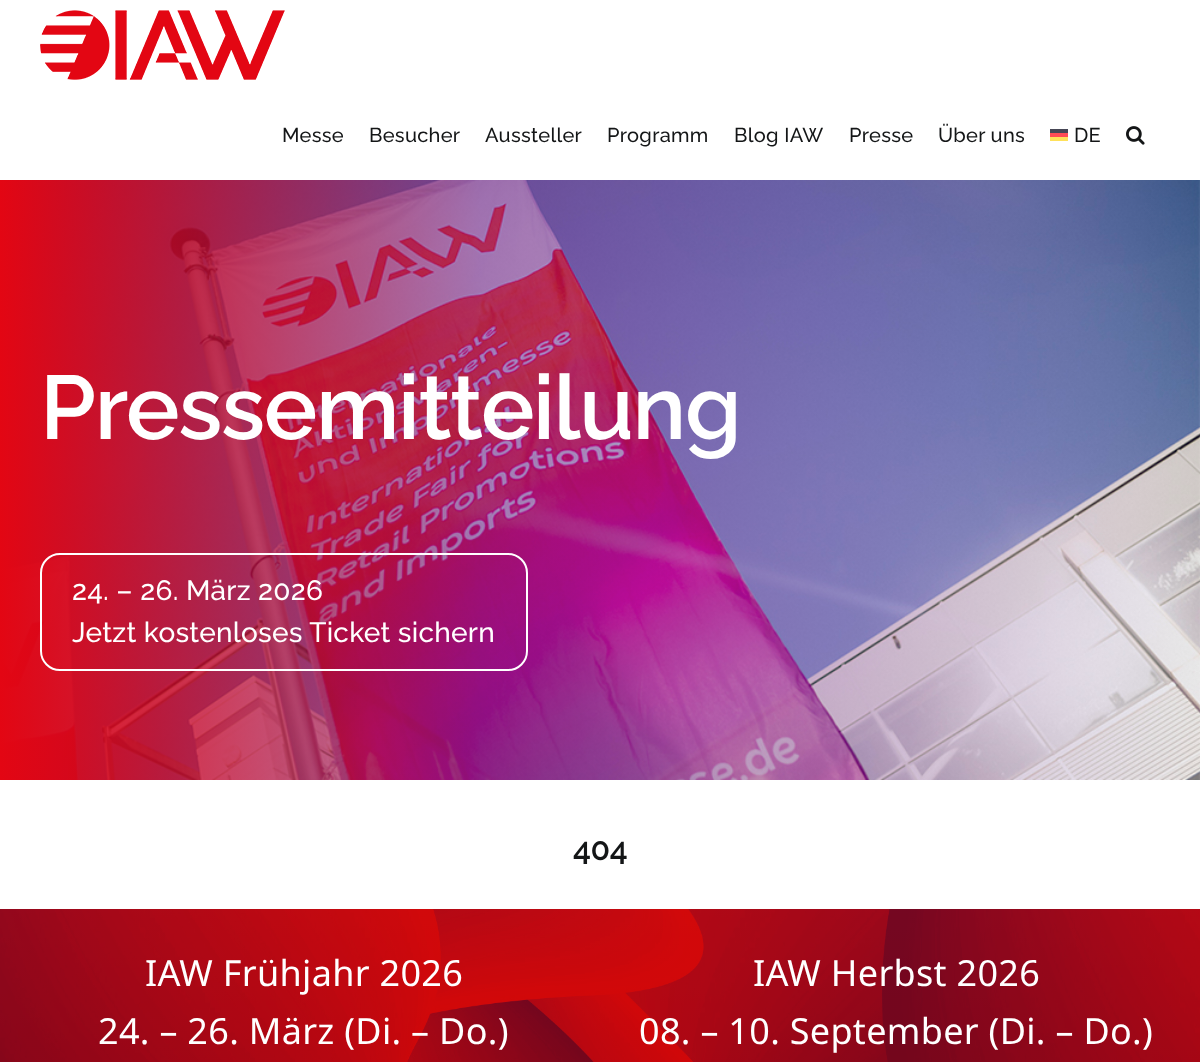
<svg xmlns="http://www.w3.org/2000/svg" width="1200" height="1062">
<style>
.a{font:500 20px Raleway;letter-spacing:0.3px;fill:#141617}
.b{font:600 90px Raleway;letter-spacing:-1.4px;fill:#fff}
.c{font:500 28px Raleway;letter-spacing:0.25px;fill:#fff}
.d{font:600 32px Raleway;letter-spacing:-0.5px;fill:#141617}
.e{font:36px Noto Sans;letter-spacing:0.3px;fill:#fff}
</style>
<rect width="100%" height="100%" fill="#fff"/>
<image href="1.png" x="40" y="10" width="245" height="70"/>
<path fill="#ff4b55" d="M1050 133h18v4H1050z"/>
<path fill="#ffe15a" d="M1050 137h18v4H1050z"/>
<path fill="#464655" d="M1050 129h18v4H1050z"/>
<image href="2.png" x="1126" y="126" width="19" height="19"/>
<image href="3.png" x="0" y="180" width="1200" height="600"/>
<rect fill="none" stroke="#fff" stroke-width="2" x="41" y="554" width="486" height="116" rx="19"/>
<image href="4.png" x="0" y="909" width="1200" height="153"/>
<text class="a" x="282" y="142">Messe</text>
<text class="a" x="369" y="142">Besucher</text>
<text class="a" x="485" y="142">Aussteller</text>
<text class="a" x="607" y="142">Programm</text>
<text class="a" x="734" y="142">Blog IAW</text>
<text class="a" x="849" y="142">Presse</text>
<text class="a" x="938" y="142">Über uns</text>
<text class="a" x="1074" y="142">DE</text>
<text class="b" x="40" y="439">Pressemitteilung</text>
<text class="c" x="72" y="600">24. – 26. März 2026</text>
<text class="c" x="72" y="642">Jetzt kostenloses Ticket sichern</text>
<text class="d" x="573" y="860">404</text>
<text class="e" x="145" y="986">IAW Frühjahr 2026</text>
<text class="e" x="98" y="1044">24. – 26. März (Di. – Do.)</text>
<text class="e" x="753" y="986">IAW Herbst 2026</text>
<text class="e" x="639" y="1044">08. – 10. September (Di. – Do.)</text>
</svg>
